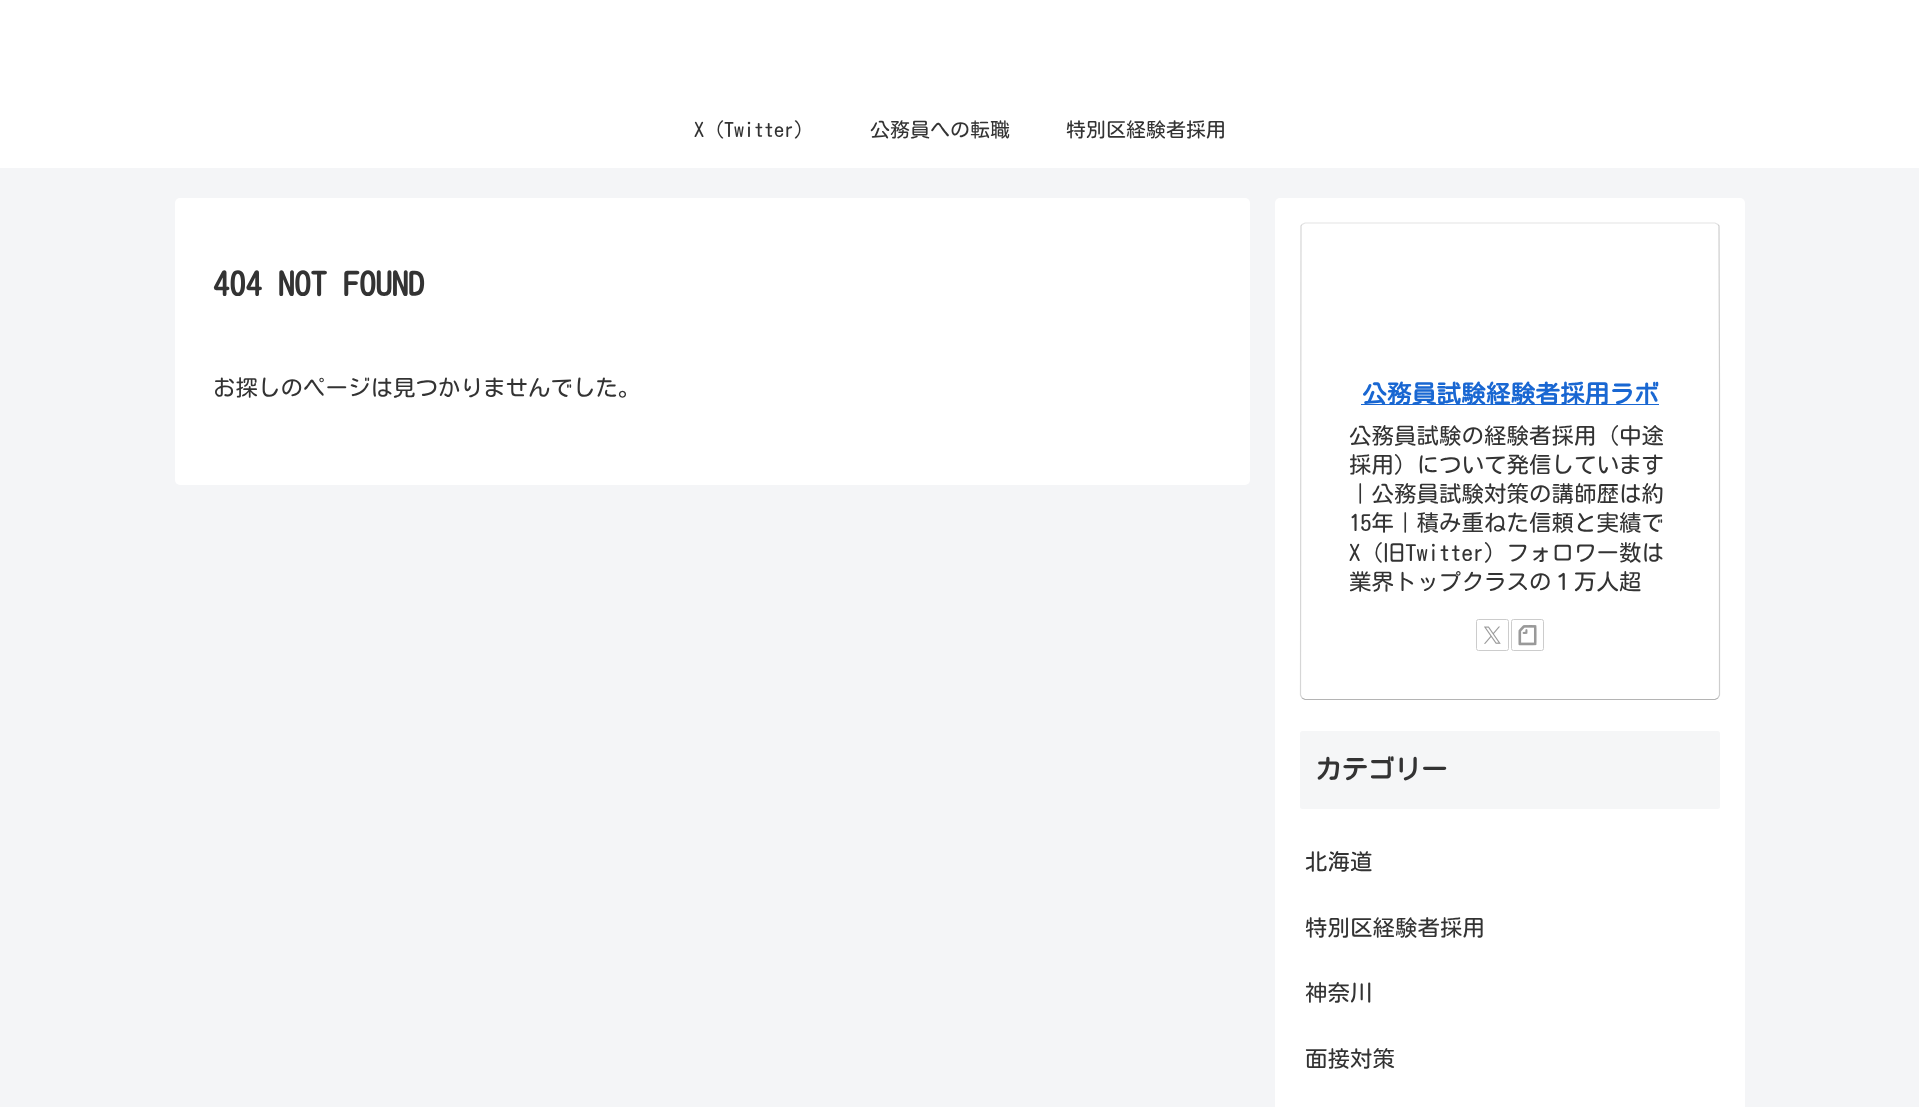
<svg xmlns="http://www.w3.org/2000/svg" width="1919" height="1107">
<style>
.a{font:20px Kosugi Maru;fill:#333}
.b{font:bold 32.5px Kosugi Maru;fill:#333}
.c{font:22.5px Kosugi Maru;fill:#333}
.d{font:bold 24.75px Kosugi Maru;fill:#1967d2}
.e{font:bold 26.5px Kosugi Maru;fill:#333}
</style>
<rect width="100%" height="100%" fill="#f4f5f7"/>
<path fill="#fff" d="M0 0h1919v168H0z"/>
<rect fill="#fff" x="175" y="198" width="1075" height="287" rx="5"/>
<rect fill="#fff" x="1275" y="198" width="470" height="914" rx="5"/>
<path fill="none" stroke="#e3e3e3" stroke-width="1.2" d="M1302 224.5l3-1.5h410l3 1.5"/>
<path fill="none" stroke="#cecece" stroke-width="1.2" d="M1718 224.5l1 1.5l.5 157.5v311.5l-1.5 3"/>
<path fill="none" stroke="#b4b4b4" stroke-width="1.2" d="M1718 698l-3 1.5h-410l-3-1.5"/>
<path fill="none" stroke="#d6d6d6" stroke-width="1.2" d="M1302 698l-1.5-3l.5-469l1-1.5"/>
<path fill="#1967d2" d="M1361 404h298v1H1361z"/>
<rect fill="none" stroke="#ccc" x="1476.5" y="619.5" width="32" height="31" rx="2"/>
<image href="1.png" x="1484" y="626" width="17" height="18"/>
<rect fill="none" stroke="#ccc" x="1511.5" y="619.5" width="32" height="31" rx="2"/>
<image href="2.png" x="1518" y="625" width="19" height="21"/>
<rect fill="#f5f6f7" x="1300" y="731" width="420" height="78" rx="2.5"/>
<text class="a" x="694" y="137">X（Twitter）</text>
<text class="a" x="870" y="137">公務員への転職</text>
<text class="a" x="1066" y="137">特別区経験者採用</text>
<text class="b" x="213" y="296">404 NOT FOUND</text>
<text class="c" x="213" y="396">お探しのページは見つかりませんでした。</text>
<text class="d" x="1362" y="403">公務員試験経験者採用ラボ</text>
<text class="c" x="1349" y="444">公務員試験の経験者採用（中途</text>
<text class="c" x="1349" y="473">採用）について発信しています</text>
<text class="c" x="1349" y="502">｜公務員試験対策の講師歴は約</text>
<text class="c" x="1349" y="531">15年｜積み重ねた信頼と実績で</text>
<text class="c" x="1349" y="561">X（旧Twitter）フォロワー数は</text>
<text class="c" x="1349" y="590">業界トップクラスの１万人超</text>
<text class="e" x="1315" y="779">カテゴリー</text>
<text class="c" x="1305" y="870">北海道</text>
<text class="c" x="1305" y="936">特別区経験者採用</text>
<text class="c" x="1305" y="1001">神奈川</text>
<text class="c" x="1305" y="1067">面接対策</text>
</svg>
